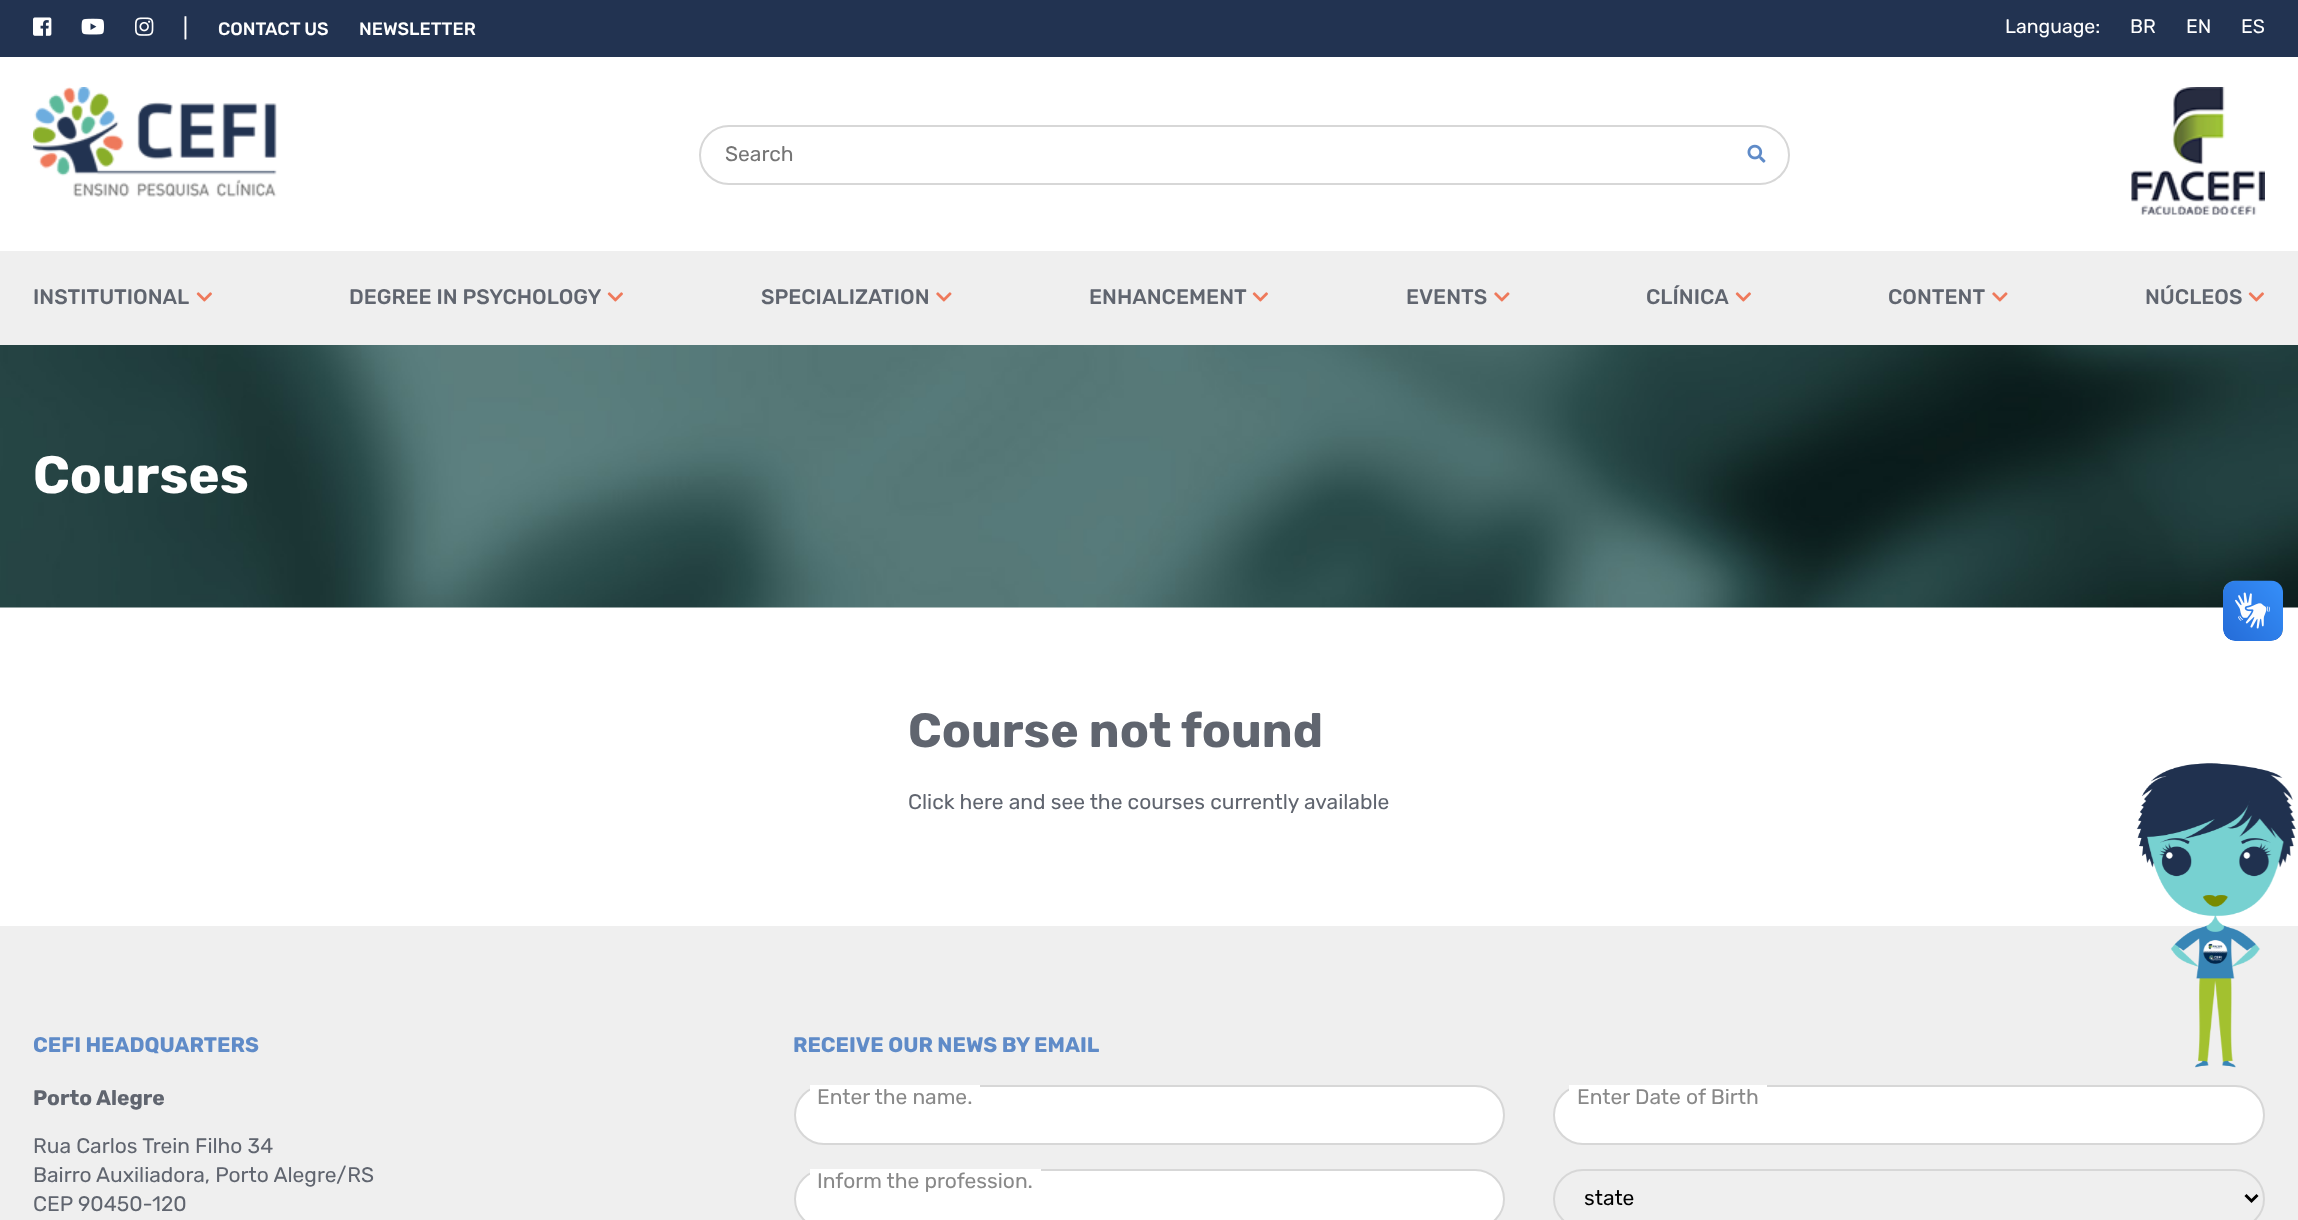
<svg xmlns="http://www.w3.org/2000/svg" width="2298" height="1220">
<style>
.a{font:21px Rubik;fill:#fff}
.b{font:500 18px Rubik;fill:#fff}
.c{font:19.5px Rubik;fill:#fff}
.d{font:21px Rubik;fill:#757575}
.e{font:500 21px Rubik;fill:#60656f}
.f{font:bold 52.5px Rubik;fill:#fff}
.g{font:bold 48px Rubik;fill:#60656f}
.h{font:21px Rubik;fill:#60656f}
.i{font:bold 21px Rubik;fill:#5f8bc8}
.j{font:bold 21px Rubik;fill:#60656f}
.k{font:21px Rubik;fill:#898989}
.l{font:21px Rubik;fill:#000}
</style>
<rect width="100%" height="100%" fill="#fff"/>
<path fill="#223351" d="M0 0h2298v57H0z"/>
<image href="1.png" x="33" y="17" width="19" height="19"/>
<image href="2.png" x="81" y="18" width="23" height="17"/>
<image href="3.png" x="135" y="17" width="19" height="19"/>
<image href="4.png" x="33" y="87" width="244" height="110"/>
<rect fill="none" stroke="#d7d7d7" stroke-width="2" x="700" y="126" width="1089" height="58" rx="29"/>
<image href="5.png" x="1747" y="144" width="19" height="19"/>
<image href="6.png" x="2131" y="87" width="134" height="128"/>
<path fill="#efefef" d="M0 251h2298v94H0z"/>
<image href="7.png" x="196" y="292" width="16" height="10"/>
<image href="7.png" x="607" y="292" width="16" height="10"/>
<image href="8.png" x="936" y="292" width="16" height="10"/>
<image href="7.png" x="1252" y="292" width="16" height="10"/>
<image href="8.png" x="1494" y="292" width="16" height="10"/>
<image href="7.png" x="1735" y="292" width="16" height="10"/>
<image href="8.png" x="1992" y="292" width="16" height="10"/>
<image href="7.png" x="2248" y="292" width="16" height="10"/>
<image href="9.png" x="0" y="345" width="2298" height="263"/>
<image href="10.png" x="2223" y="580" width="60" height="61"/>
<image href="11.png" x="2223" y="581" width="60" height="60"/>
<path fill="#efefef" d="M0 926h2298v294H0z"/>
<image href="12.png" x="2136" y="763" width="160" height="305"/>
<rect fill="#fff" stroke="#d7d7d7" stroke-width="2" x="795" y="1086" width="709" height="58" rx="29"/>
<path fill="#fff" d="M810 1085h170v6H810z"/>
<rect fill="#fff" stroke="#d7d7d7" stroke-width="2" x="795" y="1170" width="709" height="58" rx="29"/>
<path fill="#fff" d="M810 1169h231v6H810z"/>
<rect fill="#fff" stroke="#d7d7d7" stroke-width="2" x="1554" y="1086" width="710" height="58" rx="29"/>
<path fill="#fff" d="M1569 1085h198v6H1569z"/>
<rect fill="none" stroke="#d7d7d7" stroke-width="2" x="1554" y="1170" width="710" height="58" rx="29"/>
<path fill="none" stroke="#000" stroke-width="3" d="M2245.5 1195l6 6l6-6"/>
<text class="a" x="183" y="35">|</text>
<text class="b" x="218" y="35">CONTACT US</text>
<text class="b" x="359" y="35">NEWSLETTER</text>
<text class="c" x="2005" y="33">Language:</text>
<text class="c" x="2130" y="33">BR</text>
<text class="c" x="2186" y="33">EN</text>
<text class="c" x="2241" y="33">ES</text>
<text class="d" x="725" y="161">Search</text>
<text class="e" x="33" y="304">INSTITUTIONAL</text>
<text class="e" x="349" y="304">DEGREE IN PSYCHOLOGY</text>
<text class="e" x="761" y="304">SPECIALIZATION</text>
<text class="e" x="1089" y="304">ENHANCEMENT</text>
<text class="e" x="1406" y="304">EVENTS</text>
<text class="e" x="1646" y="304">CLÍNICA</text>
<text class="e" x="1888" y="304">CONTENT</text>
<text class="e" x="2145" y="304">NÚCLEOS</text>
<text class="f" x="33" y="493">Courses</text>
<text class="g" x="908" y="747">Course not found</text>
<text class="h" x="908" y="809">Click here and see the courses currently available</text>
<text class="i" x="33" y="1052">CEFI HEADQUARTERS</text>
<text class="j" x="33" y="1105">Porto Alegre</text>
<text class="h" x="33" y="1153">Rua Carlos Trein Filho 34</text>
<text class="h" x="33" y="1182">Bairro Auxiliadora, Porto Alegre/RS</text>
<text class="h" x="33" y="1211">CEP 90450-120</text>
<text class="i" x="793" y="1052">RECEIVE OUR NEWS BY EMAIL</text>
<text class="k" x="817" y="1104">Enter the name.</text>
<text class="k" x="817" y="1188">Inform the profession.</text>
<text class="k" x="1577" y="1104">Enter Date of Birth</text>
<text class="l" x="1584" y="1205">state</text>
</svg>
